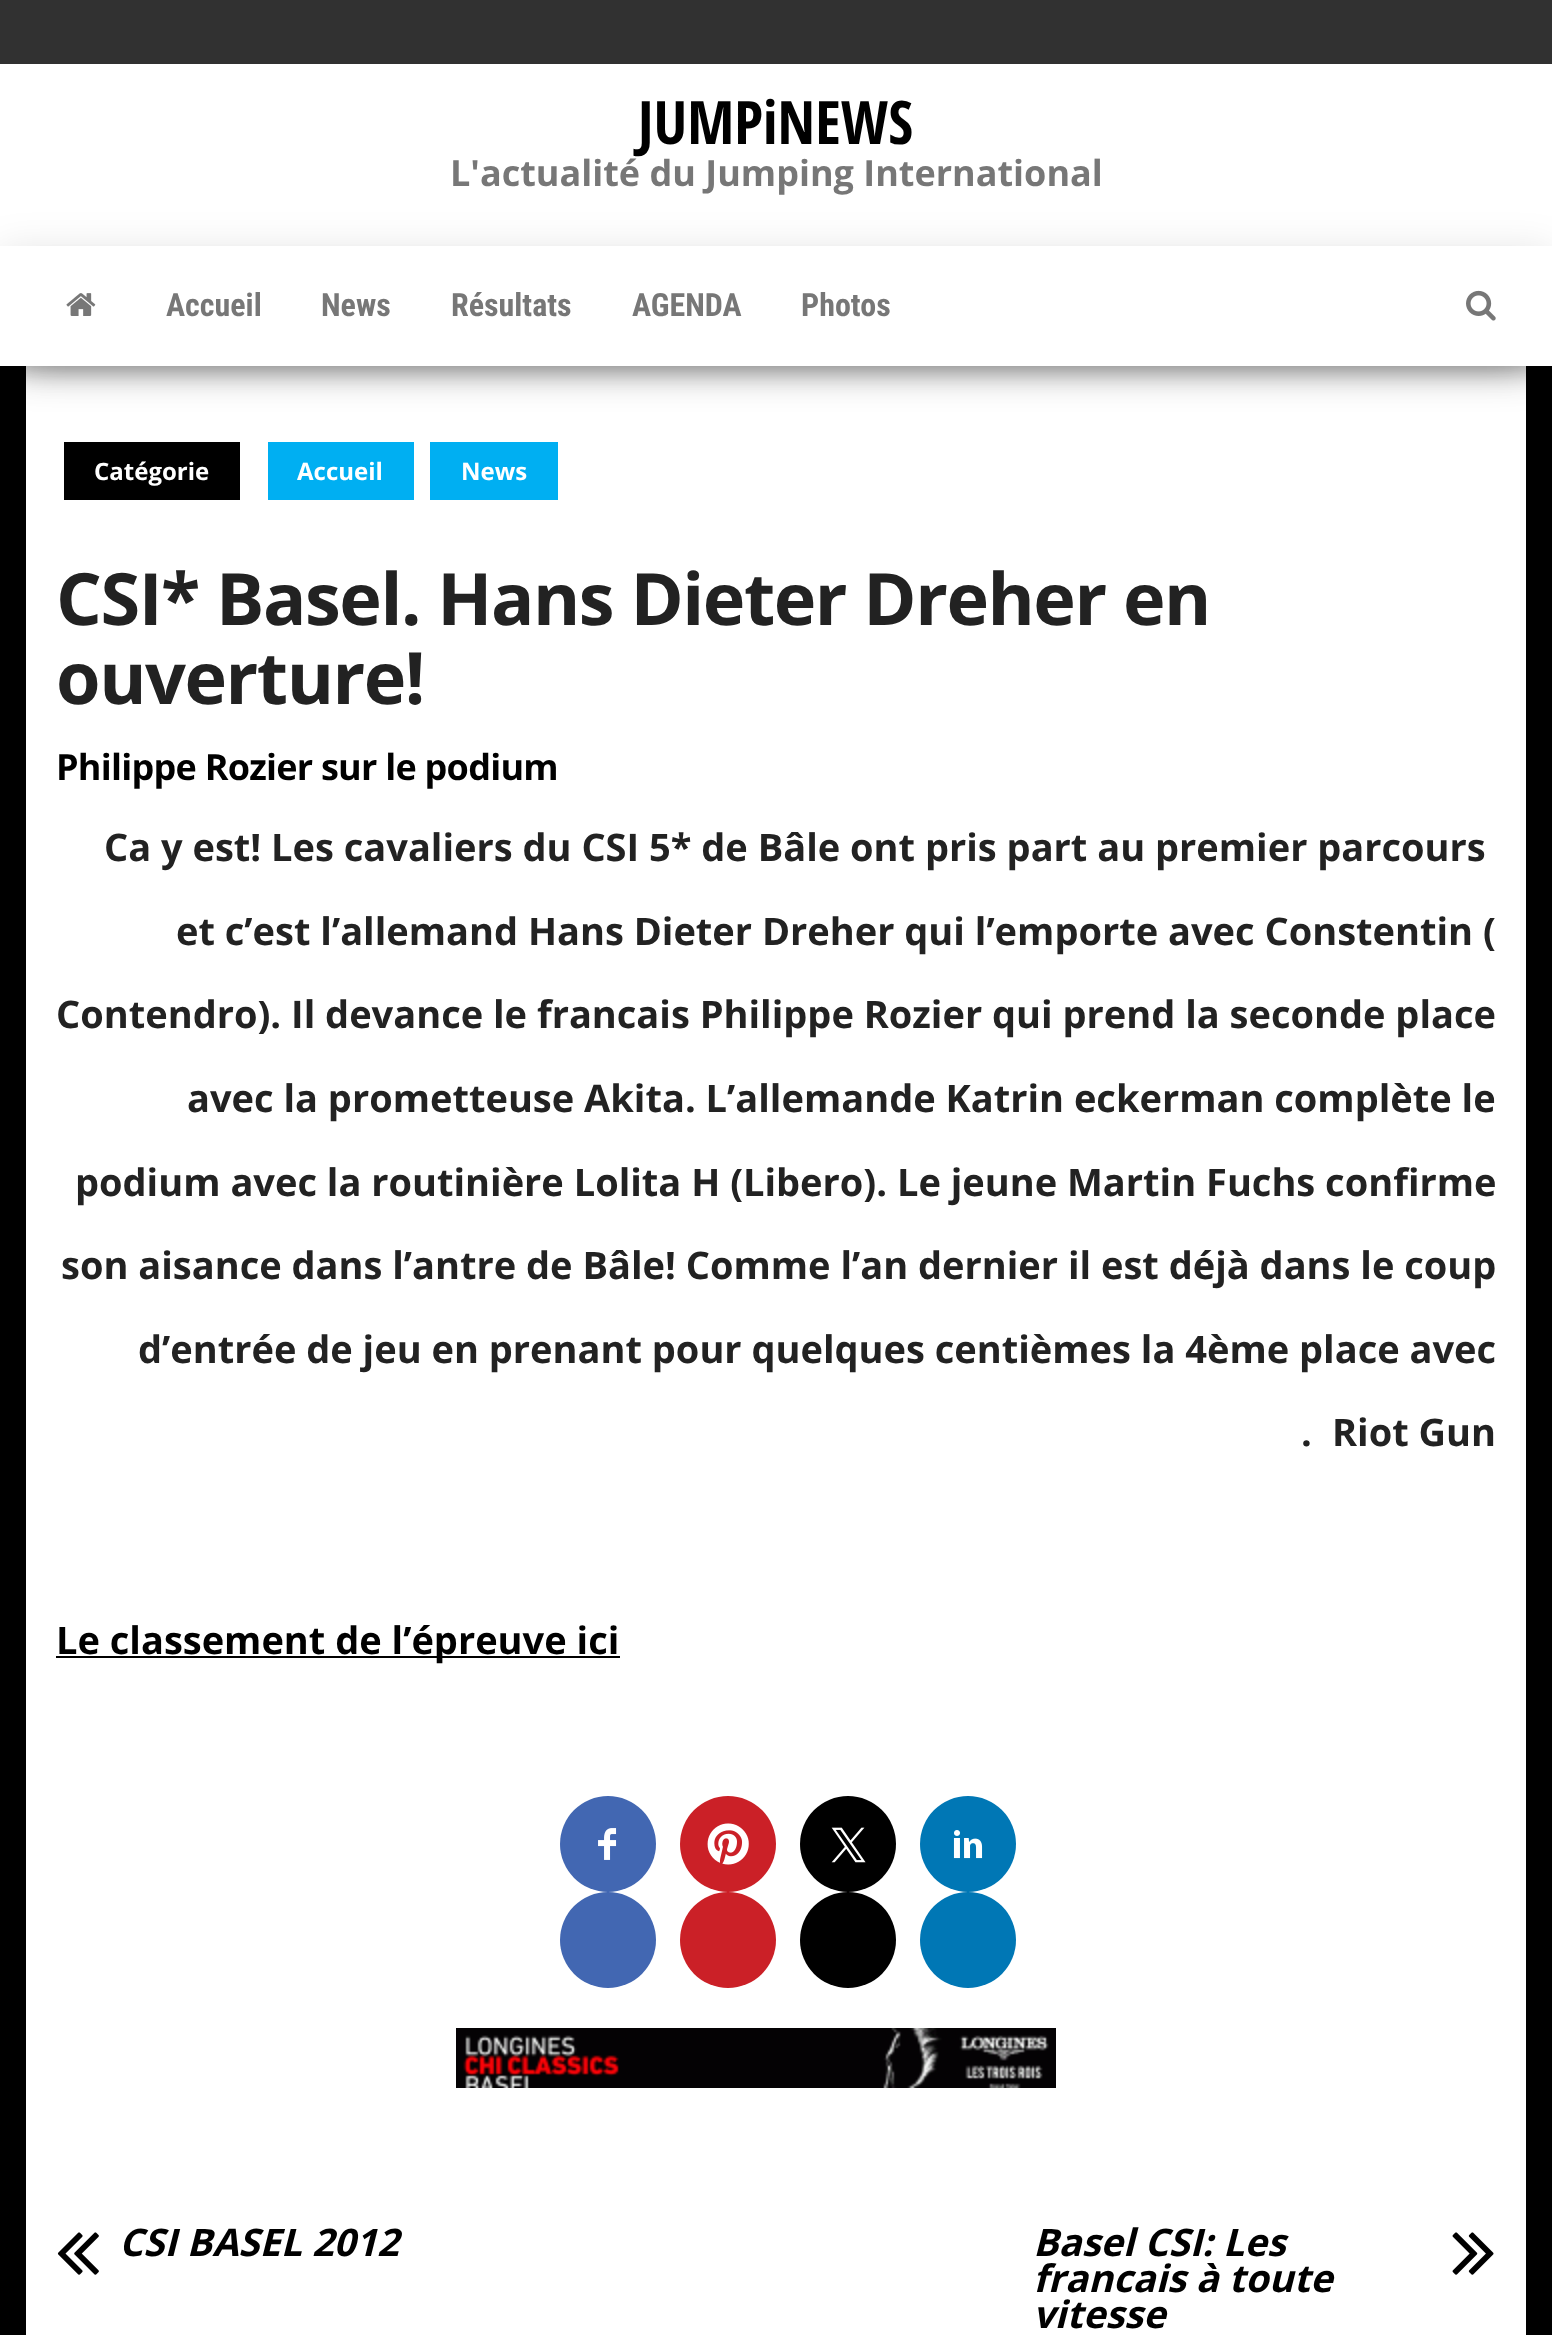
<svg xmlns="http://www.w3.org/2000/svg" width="1552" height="2335">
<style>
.a{font:bold 60px Open Sans Condensed;fill:#000}
.b{font:bold 36px Open Sans;fill:#777}
.c{font:bold 32px Roboto Condensed;fill:#777}
.d{font:bold 24px Open Sans;fill:#fff}
.e{font:bold 72px Open Sans;letter-spacing:-1.45px;fill:#222}
.f{font:bold 36px Open Sans;letter-spacing:-0.75px;fill:#000}
.g{font:bold 38px Open Sans;fill:#222}
.h{font:bold 38px Open Sans;fill:#000}
.i{font:italic bold 38px Open Sans;fill:#000}
</style>
<rect width="100%" height="100%" fill="#000"/>
<path fill="#313131" d="M0 0h1552v64H0z"/>
<path fill="#fff" d="M0 64h1552v182H0z"/>
<path fill="#fff" d="M26 366h1500v1969H26z"/>
<path fill="#00000033" filter="blur(10px)" d="M10 272h1532v100H10z"/>
<path fill="#0000001f" filter="blur(20px)" d="M0 252h1552v120H0z"/>
<path fill="#0000006b" filter="blur(20px)" d="M24 290h1504v72H24z"/>
<path fill="#fff" d="M0 246h1552v120H0z"/>
<image href="1.png" x="66" y="293" width="30" height="23"/>
<image href="2.png" x="1466" y="290" width="30" height="31"/>
<path fill="#000" d="M64 442h176v58H64z"/>
<path fill="#00aff2" d="M268 442h146v58H268z"/>
<path fill="#00aff2" d="M430 442h128v58H430z"/>
<path fill="#000" d="M56 1656h564v2H56z"/>
<circle fill="#4267b2" cx="608" cy="1844" r="48"/>
<image href="3.png" x="598" y="1828" width="19" height="32"/>
<circle fill="#4267b2" cx="608" cy="1940" r="48"/>
<circle fill="#cb2027" cx="728" cy="1844" r="48"/>
<image href="4.png" x="707" y="1823" width="42" height="42"/>
<circle fill="#cb2027" cx="728" cy="1940" r="48"/>
<circle fill="#000" cx="848" cy="1844" r="48"/>
<image href="5.png" x="831" y="1827" width="35" height="36"/>
<circle fill="#000" cx="848" cy="1940" r="48"/>
<circle fill="#0077b5" cx="968" cy="1844" r="48"/>
<image href="6.png" x="953" y="1830" width="30" height="29"/>
<circle fill="#0077b5" cx="968" cy="1940" r="48"/>
<image href="7.png" x="456" y="2028" width="600" height="60"/>
<image href="8.png" x="57" y="2232" width="42" height="43"/>
<image href="9.png" x="1452" y="2232" width="42" height="43"/>
<text class="a" x="638" y="144">JUMPiNEWS</text>
<text class="b" x="450" y="186">L'actualité du Jumping International</text>
<text class="c" x="166" y="316">Accueil</text>
<text class="c" x="321" y="316">News</text>
<text class="c" x="451" y="316">Résultats</text>
<text class="c" x="632" y="316">AGENDA</text>
<text class="c" x="801" y="316">Photos</text>
<text class="d" x="94" y="480">Catégorie</text>
<text class="d" x="297" y="480">Accueil</text>
<text class="d" x="461" y="480">News</text>
<text class="e" x="56" y="625">CSI* Basel. Hans Dieter Dreher en</text>
<text class="e" x="56" y="704">ouverture!</text>
<text class="f" x="56" y="780">Philippe Rozier sur le podium</text>
<text class="g" x="104" y="861">Ca y est! Les cavaliers du CSI 5* de Bâle ont pris part au premier parcours</text>
<text class="g" x="176" y="945">et c’est l’allemand Hans Dieter Dreher qui l’emporte avec Constentin (</text>
<text class="g" x="56" y="1028">Contendro). Il devance le francais Philippe Rozier qui prend la seconde place</text>
<text class="g" x="187" y="1112">avec la prometteuse Akita. L’allemande Katrin eckerman complète le</text>
<text class="g" x="75" y="1196">podium avec la routinière Lolita H (Libero). Le jeune Martin Fuchs confirme</text>
<text class="g" x="61" y="1279">son aisance dans l’antre de Bâle! Comme l’an dernier il est déjà dans le coup</text>
<text class="g" x="138" y="1363">d’entrée de jeu en prenant pour quelques centièmes la 4ème place avec</text>
<text class="g" x="1301" y="1446">.</text>
<text class="g" x="1332" y="1446">Riot Gun</text>
<text class="h" x="56" y="1654">Le classement de l’épreuve ici</text>
<text class="i" x="119" y="2256">CSI BASEL 2012</text>
<text class="i" x="1033" y="2256">Basel CSI: Les</text>
<text class="i" x="1033" y="2292">francais à toute</text>
<text class="i" x="1033" y="2328">vitesse</text>
</svg>
